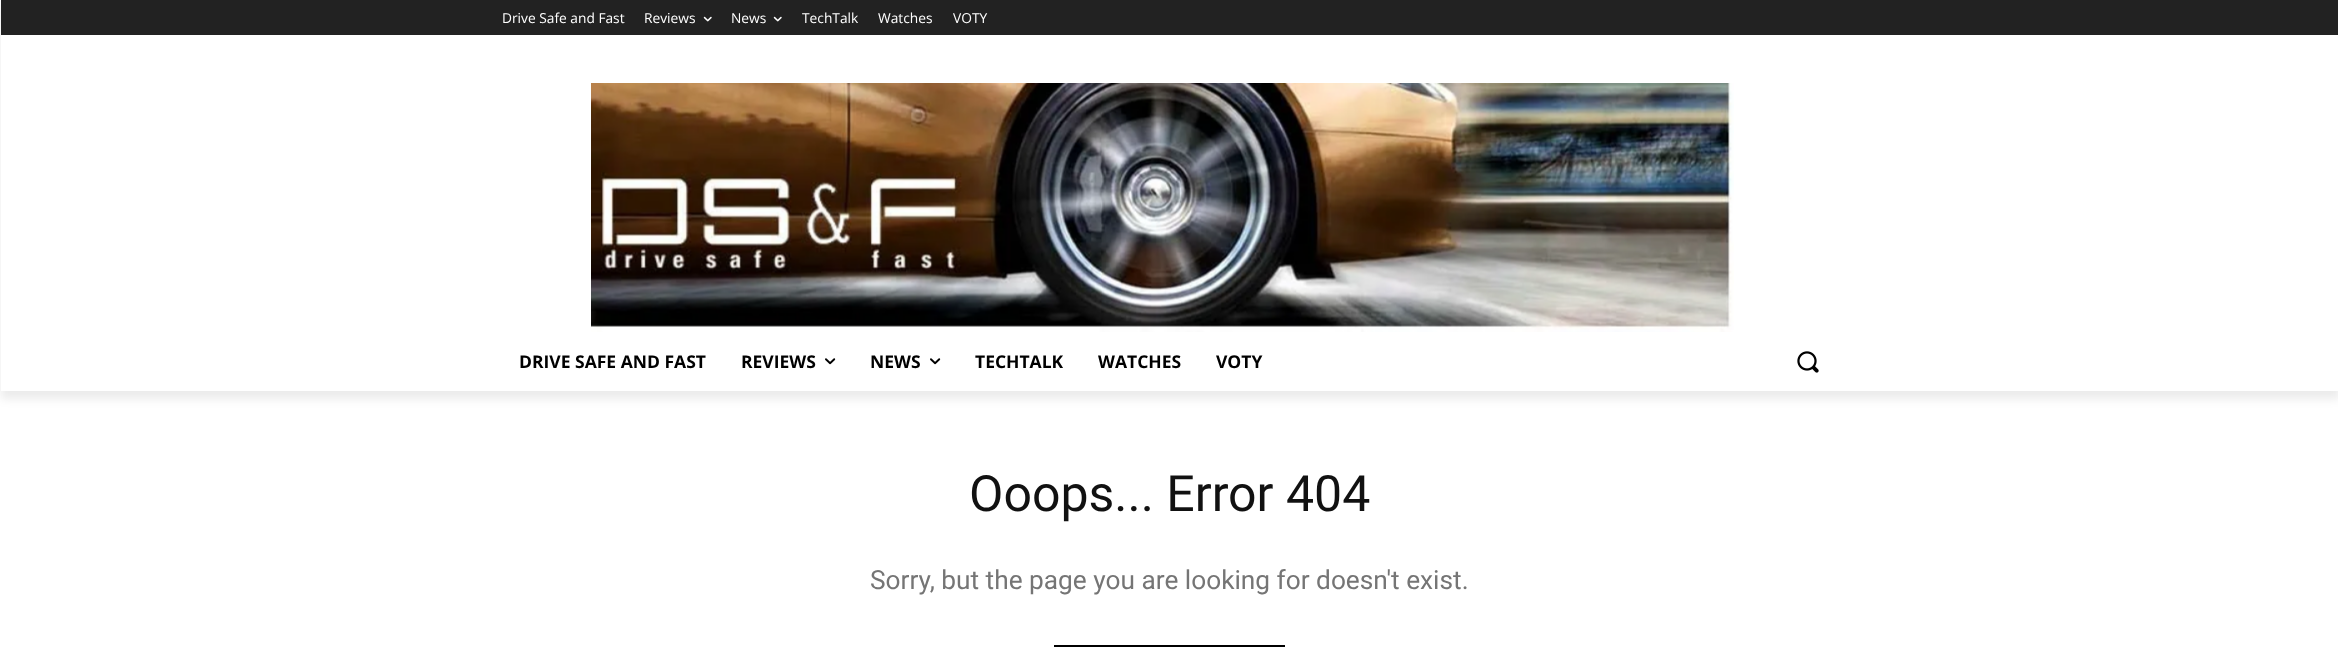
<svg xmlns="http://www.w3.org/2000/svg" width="2338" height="647">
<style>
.a{font:13.75px Open Sans;fill:#fff}
.b{font:bold 17.5px Open Sans;fill:#000}
.c{font:50px Roboto;fill:#111}
.d{font:26.25px Roboto;fill:#757575}
</style>
<defs>
<clipPath id="clip1"><path d="M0 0h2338v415h-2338zm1 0h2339v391h-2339z" clip-rule="evenodd"/></clipPath>
</defs>
<rect width="100%" height="100%" fill="#fff"/>
<path fill="#222" d="M1 0h2337v35H1z"/>
<image href="2.png" x="591" y="83" width="1143" height="249"/>
<g clip-path="url(#clip1)">
<path fill="#00000014" filter="blur(5px)" d="M1 8h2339v391H1z"/>
</g>
<image href="1.png" x="703" y="16" width="9" height="6"/>
<image href="1.png" x="773" y="16" width="9" height="6"/>
<image href="3.png" x="825" y="358" width="11" height="7"/>
<image href="3.png" x="930" y="358" width="11" height="7"/>
<image href="4.png" x="1797" y="351" width="22" height="22"/>
<path fill="#000" d="M1054 645h231v2H1054z"/>
<text class="a" x="502" y="23">Drive Safe and Fast</text>
<text class="a" x="644" y="23">Reviews</text>
<text class="a" x="731" y="23">News</text>
<text class="a" x="802" y="23">TechTalk</text>
<text class="a" x="878" y="23">Watches</text>
<text class="a" x="953" y="23">VOTY</text>
<text class="b" x="519" y="368">DRIVE SAFE AND FAST</text>
<text class="b" x="741" y="368">REVIEWS</text>
<text class="b" x="870" y="368">NEWS</text>
<text class="b" x="975" y="368">TECHTALK</text>
<text class="b" x="1098" y="368">WATCHES</text>
<text class="b" x="1216" y="368">VOTY</text>
<text class="c" x="969" y="511">Ooops... Error 404</text>
<text class="d" x="870" y="589">Sorry, but the page you are looking for doesn't exist.</text>
</svg>
